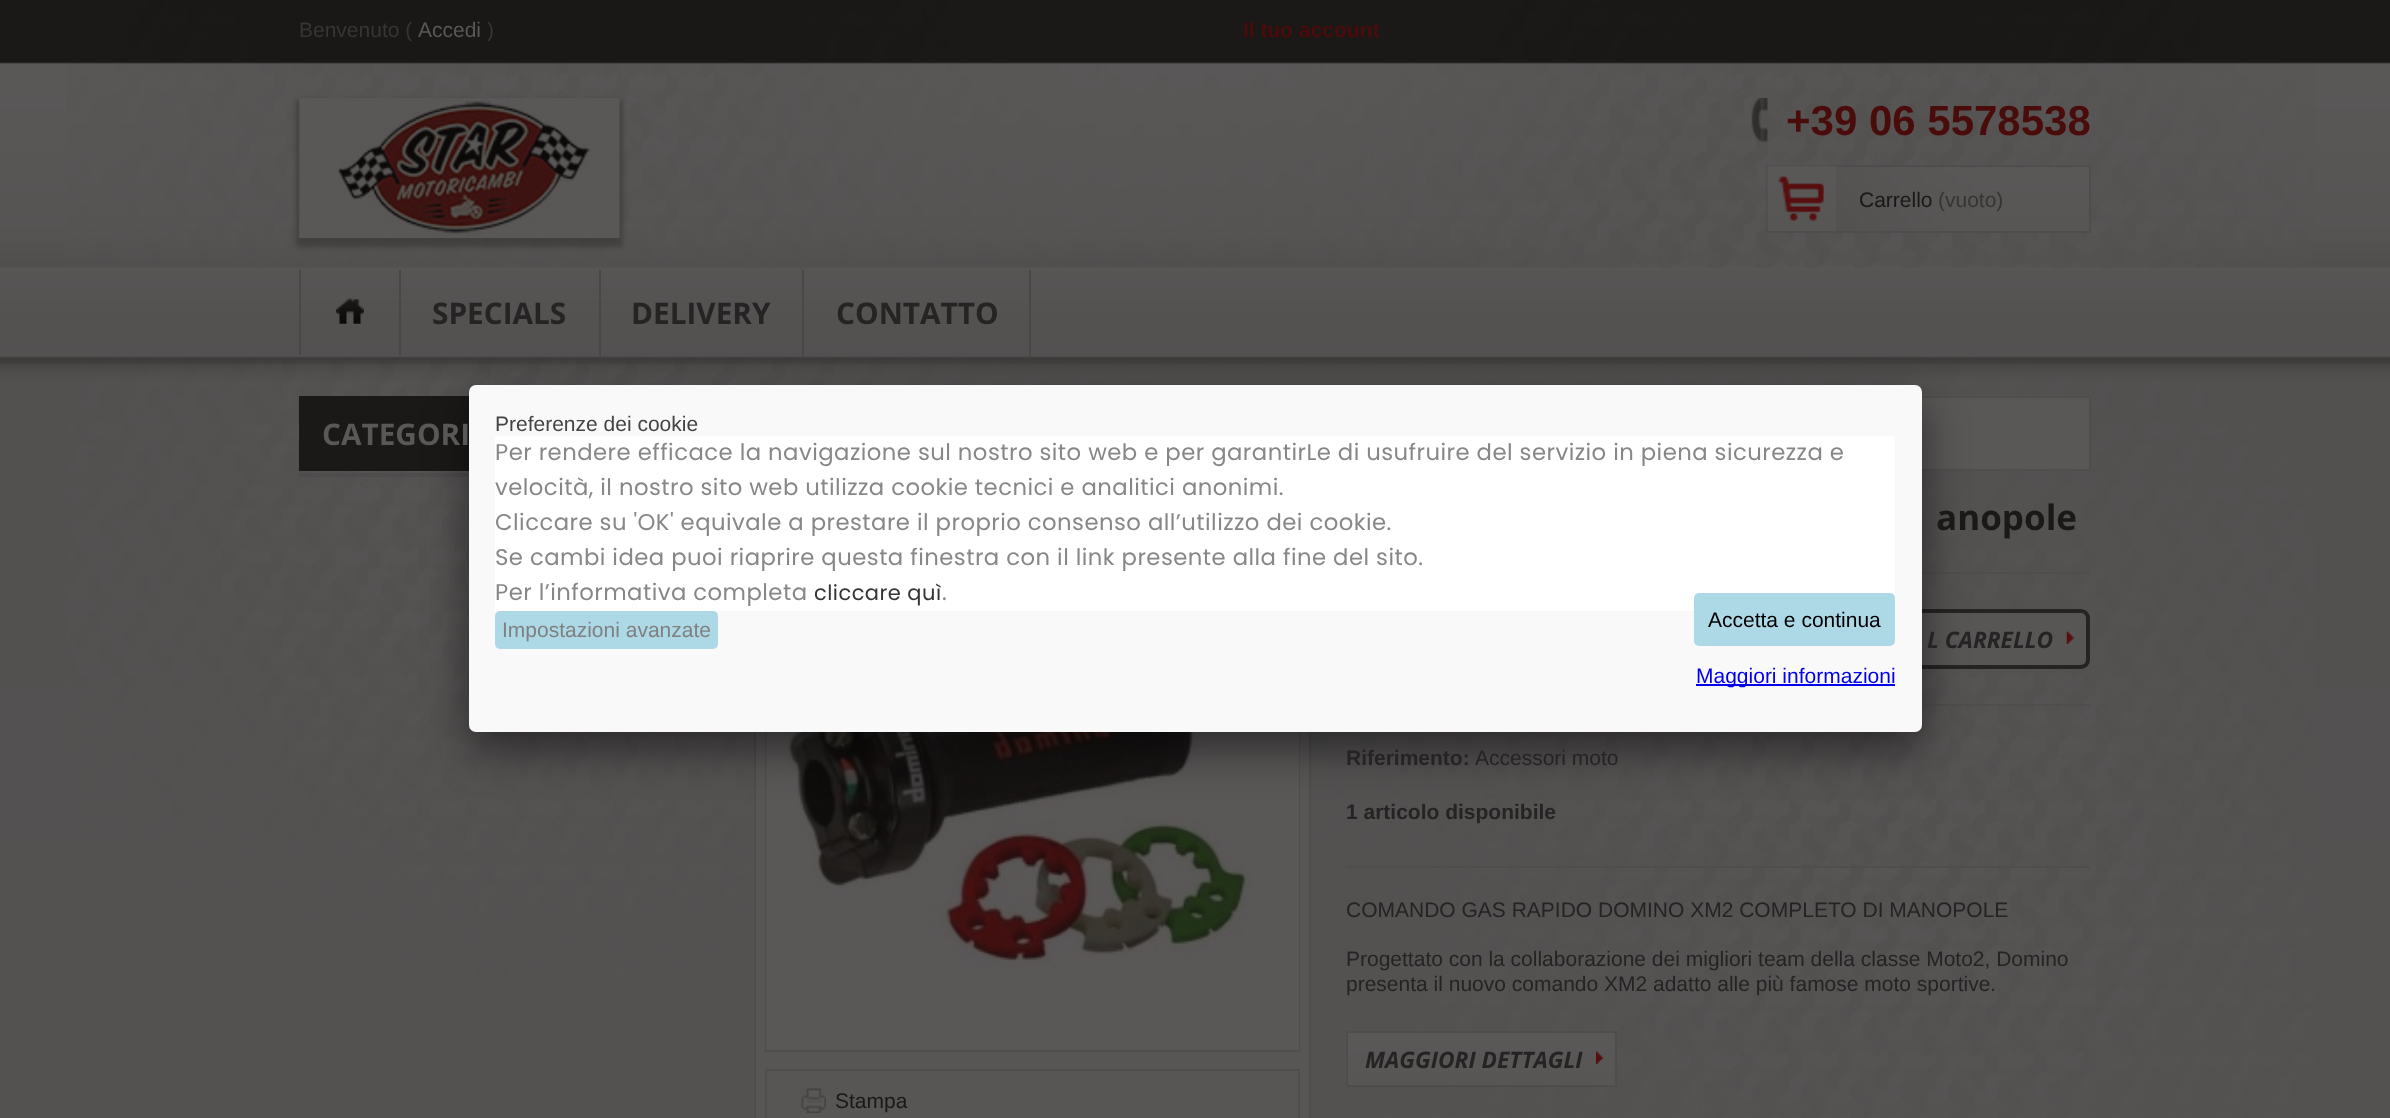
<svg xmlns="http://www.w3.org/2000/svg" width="2390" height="1118">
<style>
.a{font:21px Liberation Sans;fill:#363434}
.b{font:21px Liberation Sans;fill:#5a5757}
.c{font:bold 21px Liberation Sans;fill:#4a0b0b}
.d{font:21px Liberation Sans;fill:#1b1818}
.e{font:bold 42px Liberation Sans;fill:#4a0b0b}
.f{font:bold 29.75px Open Sans;fill:#252323}
.g{font:bold 29.75px Open Sans;fill:#5a5757}
.h{font:bold 35px Open Sans;fill:#1b1818}
.i{font:italic bold 22.75px Open Sans;fill:#252323}
.j{font:bold 21px Liberation Sans;fill:#252323}
.k{font:21px Liberation Sans;fill:#252323}
.l{font:21px Liberation Sans;fill:#444}
.m{font:22.75px Poppins;letter-spacing:0.46px;fill:#878787}
.n{font:21px Poppins;letter-spacing:0.46px;fill:#363434}
.o{font:21px Liberation Sans;fill:#808080}
.p{font:21px Liberation Sans;fill:#000}
.q{font:21px Liberation Sans;fill:#00e}
</style>
<rect width="100%" height="100%" fill="#fff"/>
<image href="1.png" x="0" y="0" width="2390" height="1118"/>
<image href="2.png" x="66" y="0" width="2249" height="1118"/>
<image href="3.png" x="1768" y="164" width="321" height="67"/>
<path fill="none" stroke="#4e4c4c" stroke-width="2" d="M1767 166h323v66H1767z"/>
<image href="4.png" x="1767" y="166" width="69" height="65"/>
<path fill="#0b080840" filter="blur(2.5px)" d="M296 100h327v147H296z"/>
<image href="5.png" x="299" y="98" width="321" height="140"/>
<image href="6.png" x="1751" y="98" width="17" height="44"/>
<path fill="#4a4747" d="M399 270h2v85H399z"/>
<path fill="#4a4747" d="M299 270h2v85H299z"/>
<image href="7.png" x="336" y="297" width="28" height="27"/>
<path fill="#4a4747" d="M599 270h2v87H599z"/>
<path fill="#4a4747" d="M802 270h2v87H802z"/>
<path fill="#4a4747" d="M1029 270h2v87H1029z"/>
<path fill="#1b1818" d="M299 396h170v75H299z"/>
<path fill="#4e4c4c" d="M299 473h170v4H299z"/>
<path fill="#5a5757" d="M2087 398h2v71H2087z"/>
<image href="8.png" x="1922" y="395" width="166" height="74"/>
<path fill="none" stroke="#504d4d" stroke-width="2" d="M755 397h1335v73H755z"/>
<path fill="#504d4d" d="M1922 572h168v2H1922z"/>
<rect fill="#585555" x="1776" y="609" width="314" height="60" rx="9"/>
<path fill="#5a5757" d="M2088 613h1v1H2088z"/>
<rect fill="none" stroke="#262323" stroke-width="4" x="1778" y="611" width="310" height="56" rx="7"/>
<image href="9.png" x="2066" y="631" width="8" height="13"/>
<path fill="#504d4d" d="M1922 704h168v2H1922z"/>
<path fill="#504d4d" d="M1346 866h744v2H1346z"/>
<path fill="#585555" d="M1348 1081h267v4H1348z"/>
<image href="10.png" x="1345" y="1033" width="270" height="48"/>
<path fill="none" stroke="#4e4c4c" stroke-width="2" d="M1347 1032h269v54H1347z"/>
<image href="11.png" x="1596" y="1051" width="7" height="13"/>
<path fill="#585555" d="M756 732h553v386H756z"/>
<path fill="none" stroke="#4e4c4c" stroke-width="2" d="M755 507h555v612H755z"/>
<path fill="none" stroke="#504d4d" stroke-width="2" d="M766 517h533v534H766z"/>
<path fill="#5a5757" d="M1298 732h1v318H1298z"/>
<image href="12.png" x="766" y="732" width="533" height="318"/>
<path fill="none" stroke="#504d4d" stroke-width="2" d="M766 1070h533v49H766z"/>
<image href="13.png" x="801" y="1088" width="25" height="25"/>
<rect fill="#00000080" filter="blur(22px)" x="469" y="403" width="1453" height="346" rx="7"/>
<rect fill="#f9f9f9" x="469" y="385" width="1453" height="347" rx="7"/>
<path fill="#fff" d="M495 436h1400v175H495z"/>
<rect fill="#add8e6" x="495" y="611" width="223" height="38" rx="5"/>
<rect fill="#add8e6" x="1694" y="593" width="201" height="53" rx="5"/>
<path fill="#00e" d="M1696 684h199v2H1696z"/>
<text class="a" x="299" y="37">Benvenuto (</text>
<text class="b" x="418" y="37">Accedi</text>
<text class="a" x="487" y="37">)</text>
<text class="c" x="1243" y="37">Il tuo account</text>
<text class="d" x="1859" y="207">Carrello</text>
<text class="a" x="1938" y="207">(vuoto)</text>
<text class="e" x="1786" y="135">+39 06 5578538</text>
<text class="f" x="432" y="324">SPECIALS</text>
<text class="f" x="631" y="324">DELIVERY</text>
<text class="f" x="836" y="324">CONTATTO</text>
<text class="g" x="322" y="445">CATEGORI</text>
<text class="h" x="1936" y="530">anopole</text>
<text class="i" x="1927" y="648">L CARRELLO</text>
<text class="j" x="1346" y="765">Riferimento:</text>
<text class="k" x="1475" y="765">Accessori moto</text>
<text class="j" x="1346" y="819">1 articolo disponibile</text>
<text class="k" x="1346" y="917">COMANDO GAS RAPIDO DOMINO XM2 COMPLETO DI MANOPOLE</text>
<text class="k" x="1346" y="966">Progettato con la collaborazione dei migliori team della classe Moto2, Domino</text>
<text class="k" x="1346" y="991">presenta il nuovo comando XM2 adatto alle più famose moto sportive.</text>
<text class="i" x="1365" y="1068">MAGGIORI DETTAGLI</text>
<text class="d" x="835" y="1108">Stampa</text>
<text class="l" x="495" y="431">Preferenze dei cookie</text>
<text class="m" x="495" y="460">Per rendere efficace la navigazione sul nostro sito web e per garantirLe di usufruire del servizio in piena sicurezza e</text>
<text class="m" x="495" y="495">velocità, il nostro sito web utilizza cookie tecnici e analitici anonimi.</text>
<text class="m" x="495" y="530">Cliccare su 'OK' equivale a prestare il proprio consenso all’utilizzo dei cookie.</text>
<text class="m" x="495" y="565">Se cambi idea puoi riaprire questa finestra con il link presente alla fine del sito.</text>
<text class="m" x="495" y="600">Per l’informativa completa</text>
<text class="n" x="814" y="600">cliccare quì</text>
<text class="m" x="942" y="600">.</text>
<text class="o" x="502" y="637">Impostazioni avanzate</text>
<text class="p" x="1708" y="627">Accetta e continua</text>
<text class="q" x="1696" y="683">Maggiori informazioni</text>
</svg>
